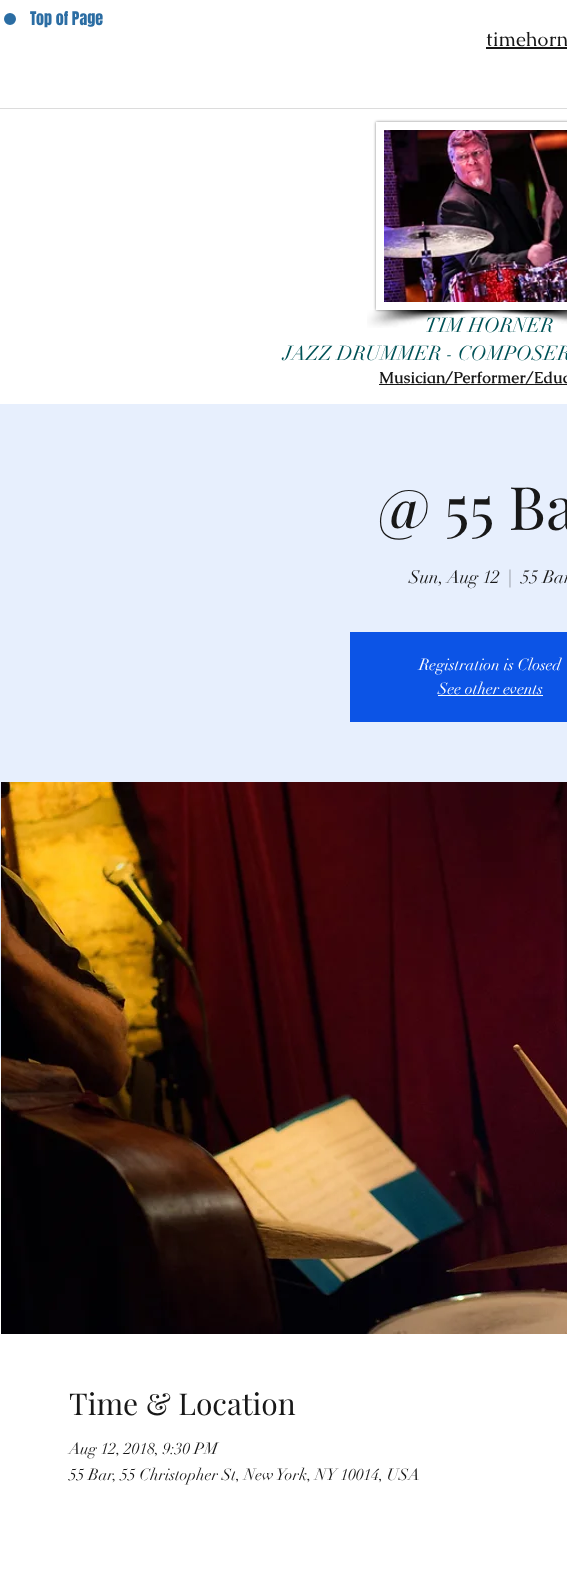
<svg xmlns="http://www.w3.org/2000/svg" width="567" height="1571">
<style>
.a{font:16px Anton;fill:#2b6da3}
.b{font:20px Caudex;fill:#181818}
.c{font:20px didot;fill:#005257}
.d{font:bold 16px Caudex;fill:#181818}
.e{font:60px Playfair Display;fill:#181818}
.f{font:18px didot;fill:#181818}
.g{font:16px didot;fill:#fff}
.h{font:30px Playfair Display;fill:#181818}
.i{font:16px didot;fill:#181818}
</style>
<defs>
<clipPath id="clip1"><path d="M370 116h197v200h-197zm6 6h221v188h-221z" clip-rule="evenodd"/></clipPath>
</defs>
<rect width="100%" height="100%" fill="#fff"/>
<circle fill="#2b6da3" stroke="#2b6da3" stroke-width="2" cx="10" cy="19" r="5"/>
<path fill="#181818" d="M486 47h81v2H486z"/>
<path fill="#dcdcdc" d="M0 108h567v1H0z"/>
<g clip-path="url(#clip1)">
<path fill="#00000080" filter="blur(1.5px)" d="M376 122h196v188H376z"/>
</g>
<image href="1.png" x="384" y="130" width="183" height="172"/>
<image href="2.png" x="367" y="310" width="154" height="18"/>
<image href="3.png" x="467" y="310" width="100" height="14"/>
<path fill="#181818" d="M379 384h188v1H379z"/>
<path fill="#e7effd" d="M0 404h567v654H0z"/>
<path fill="#0c54e6" d="M350 632h217v90H350z"/>
<path fill="#fff" d="M438 695h105v1H438z"/>
<image href="4.png" x="1" y="782" width="566" height="552"/>
<text class="a" x="30" y="25">Top of Page</text>
<text class="b" x="486" y="46">timehorn</text>
<text class="c" x="425" y="332">TIM HORNER</text>
<text class="c" x="283" y="360">JAZZ DRUMMER - COMPOSER</text>
<text class="d" x="379" y="383">Musician/Performer/Educ</text>
<text class="e" x="377" y="530">@ 55 Ba</text>
<text class="f" x="409" y="583">Sun, Aug 12</text>
<text class="f" x="508" y="583">|</text>
<text class="f" x="521" y="583">55 Bar</text>
<text class="g" x="419" y="670">Registration is Closed</text>
<text class="g" x="438" y="694">See other events</text>
<text class="h" x="69" y="1415">Time &amp; Location</text>
<text class="i" x="69" y="1454">Aug 12, 2018, 9:30 PM</text>
<text class="i" x="69" y="1480">55 Bar, 55 Christopher St, New York, NY 10014, USA</text>
</svg>
